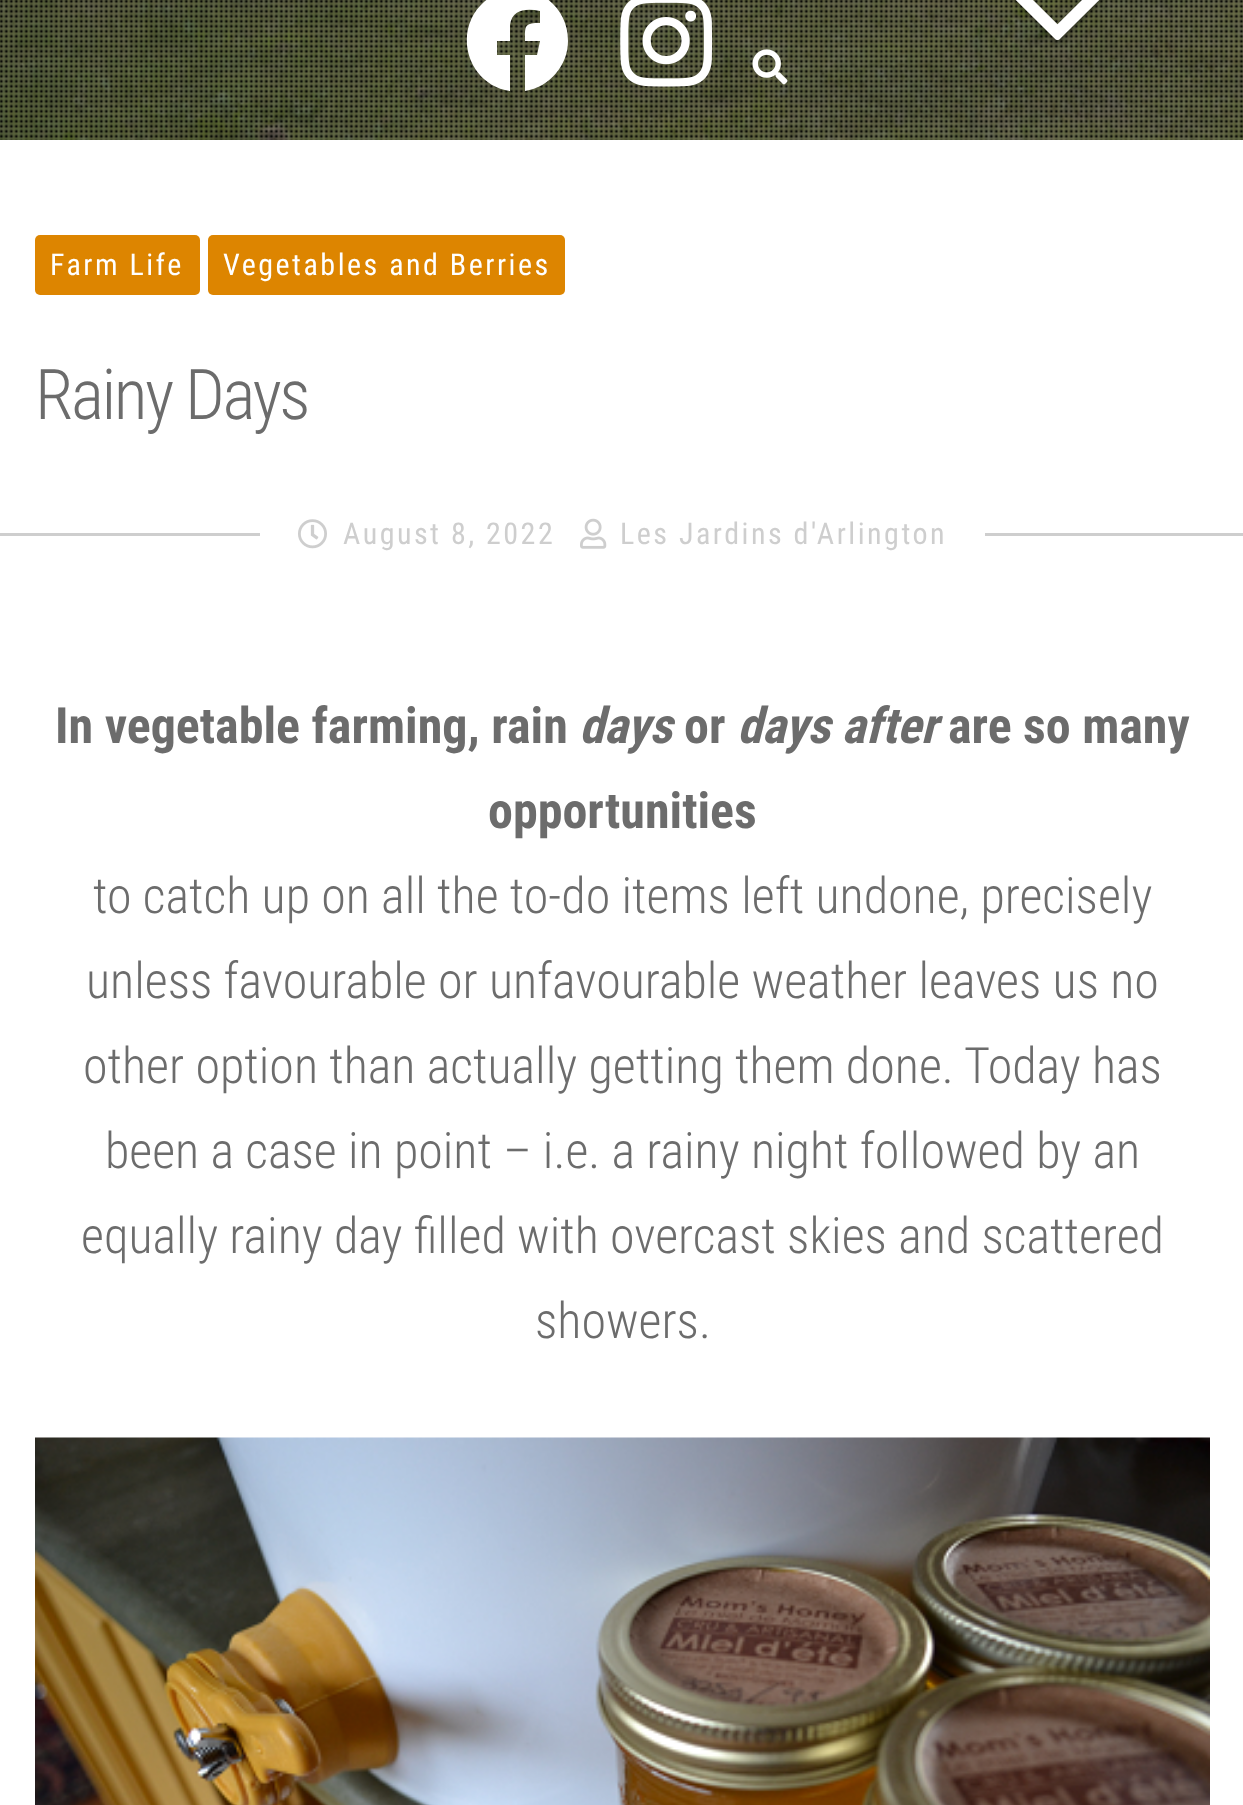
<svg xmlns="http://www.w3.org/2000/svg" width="1243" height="1805">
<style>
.a{font:30px Roboto Condensed;letter-spacing:2.5px;fill:#fff}
.b{font:300 70px Roboto Condensed;letter-spacing:-2.5px;fill:#6c6c6c}
.c{font:30px Roboto Condensed;letter-spacing:2.5px;fill:#cecece}
.d{font:bold 50px Roboto Condensed;fill:#6c6c6c}
.e{font:italic bold 50px Roboto Condensed;fill:#6c6c6c}
.f{font:300 50px Roboto Condensed;fill:#6c6c6c}
</style>
<rect width="100%" height="100%" fill="#fff"/>
<image href="1.png" x="0" y="0" width="1243" height="140"/>
<image href="2.png" x="0" y="0" width="1243" height="140"/>
<path fill="#fff" d="M568 41c0 24-18 46-43 50v-36h12l3-14h-15c0-15-1-18 15-18v-12c-13-3-28-2-30 14v16h-13v14h13v36c-44-7-58-62-25-90c8-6 17-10 27-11c12-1 24 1 34 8c14 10 22 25 22 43z"/>
<image href="3.png" x="620" y="0" width="93" height="87"/>
<image href="4.png" x="752" y="49" width="36" height="36"/>
<image href="5.png" x="1012" y="0" width="93" height="45"/>
<rect fill="#dd8500" x="35" y="235" width="165" height="60" rx="5"/>
<rect fill="#dd8500" x="208" y="235" width="357" height="60" rx="5"/>
<path fill="#cecece" d="M0 533h260v3H0z"/>
<image href="6.png" x="298" y="519" width="29" height="30"/>
<image href="7.png" x="580" y="518" width="27" height="31"/>
<path fill="#cecece" d="M985 533h258v3H985z"/>
<image href="8.png" x="35" y="1437" width="1175" height="368"/>
<text class="a" x="50" y="275">Farm Life</text>
<text class="a" x="223" y="275">Vegetables and Berries</text>
<text class="b" x="35" y="419">Rainy Days</text>
<text class="c" x="343" y="544">August 8, 2022</text>
<text class="c" x="620" y="544">Les Jardins d'Arlington</text>
<text class="d" x="55" y="743">In vegetable farming, rain</text>
<text class="e" x="579" y="743">days</text>
<text class="d" x="684" y="743">or</text>
<text class="e" x="737" y="743">days after</text>
<text class="d" x="948" y="743">are so many</text>
<text class="d" x="488" y="828">opportunities</text>
<text class="f" x="93" y="913">to catch up on all the to-do items left undone, precisely</text>
<text class="f" x="86" y="998">unless favourable or unfavourable weather leaves us no</text>
<text class="f" x="83" y="1083">other option than actually getting them done. Today has</text>
<text class="f" x="105" y="1168">been a case in point – i.e. a rainy night followed by an</text>
<text class="f" x="81" y="1253">equally rainy day filled with overcast skies and scattered</text>
<text class="f" x="535" y="1338">showers.</text>
</svg>
